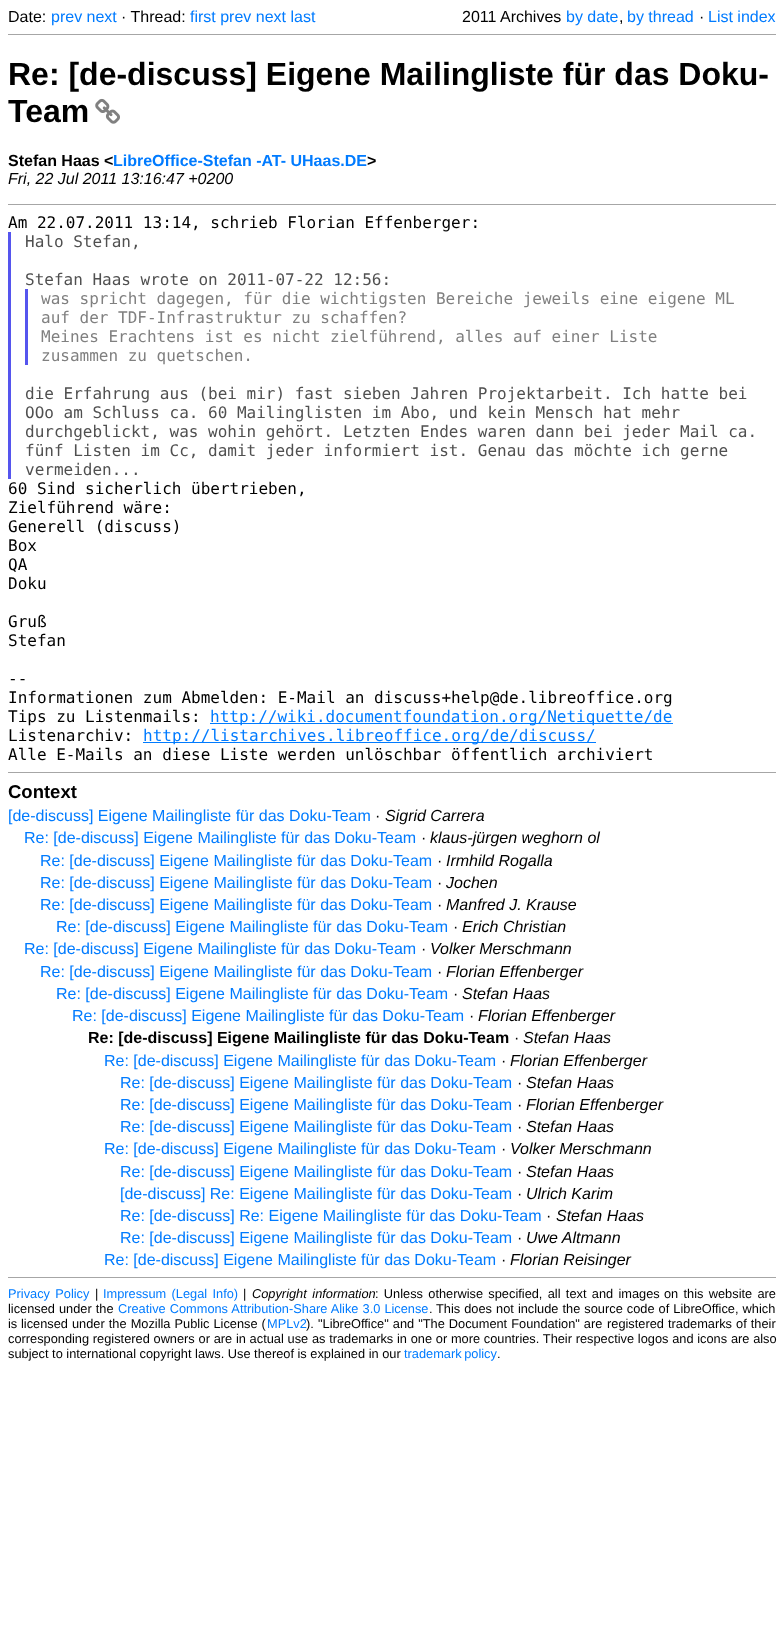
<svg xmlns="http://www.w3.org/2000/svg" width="784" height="1649">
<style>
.a{font:16px Liberation Sans;fill:#000}
.b{font:16px Liberation Sans;fill:#007bff}
.c{font:bold 32px Liberation Sans;fill:#000}
.d{font:bold 16px Liberation Sans;fill:#000}
.e{font:bold 16px Liberation Sans;fill:#007bff}
.f{font:italic 16px Liberation Sans;fill:#000}
.g{font:16px DejaVu Sans Mono;fill:#000}
.h{font:16px DejaVu Sans Mono;fill:#505050}
.i{font:16px DejaVu Sans Mono;fill:#808080}
.j{font:16px DejaVu Sans Mono;fill:#007bff}
.k{font:bold 18.5px Liberation Sans;fill:#000}
.l{font:12.8px Liberation Sans;fill:#007bff}
.m{font:12.8px Liberation Sans;fill:#000}
.n{font:italic 12.8px Liberation Sans;fill:#000}
</style>
<rect width="100%" height="100%" fill="#fff"/>
<path fill="#a6a6a6" d="M8 34h768v1H8z"/>
<image href="1.png" x="95" y="98" width="25" height="26"/>
<path fill="#a6a6a6" d="M8 204h768v1H8z"/>
<path fill="#55e" d="M8 232h3v247H8z"/>
<path fill="#55e" d="M25 289h3v76H25z"/>
<path fill="#007bff" d="M210 723h463v1H210z"/>
<path fill="#007bff" d="M143 742h453v1H143z"/>
<path fill="#a6a6a6" d="M8 772h768v1H8z"/>
<path fill="#a6a6a6" d="M8 1277h768v1H8z"/>
<text class="a" x="8" y="22">Date:</text>
<text class="b" x="51" y="22">prev next</text>
<text class="a" x="121" y="22">· Thread:</text>
<text class="b" x="190" y="22">first prev next last</text>
<text class="a" x="462" y="22">2011 Archives</text>
<text class="b" x="566" y="22">by date</text>
<text class="b" x="627" y="22">by thread</text>
<text class="a" x="699" y="22">·</text>
<text class="b" x="708" y="22">List index</text>
<text class="a" x="619" y="22">,</text>
<text class="c" x="8" y="85">Re: [de-discuss] Eigene Mailingliste für das Doku-</text>
<text class="c" x="8" y="122">Team</text>
<text class="d" x="8" y="166">Stefan Haas &lt;</text>
<text class="e" x="113" y="166">LibreOffice-Stefan -AT- UHaas.DE</text>
<text class="d" x="367" y="166">&gt;</text>
<text class="f" x="8" y="184">Fri, 22 Jul 2011 13:16:47 +0200</text>
<text class="g" x="8" y="228">Am 22.07.2011 13:14, schrieb Florian Effenberger:</text>
<text class="h" x="25" y="247">Halo Stefan,</text>
<text class="h" x="25" y="285">Stefan Haas wrote on 2011-07-22 12:56:</text>
<text class="i" x="41" y="304">was spricht dagegen, für die wichtigsten Bereiche jeweils eine eigene ML</text>
<text class="i" x="41" y="323">auf der TDF-Infrastruktur zu schaffen?</text>
<text class="i" x="41" y="342">Meines Erachtens ist es nicht zielführend, alles auf einer Liste</text>
<text class="i" x="41" y="361">zusammen zu quetschen.</text>
<text class="h" x="25" y="399">die Erfahrung aus (bei mir) fast sieben Jahren Projektarbeit. Ich hatte bei</text>
<text class="h" x="25" y="418">OOo am Schluss ca. 60 Mailinglisten im Abo, und kein Mensch hat mehr</text>
<text class="h" x="25" y="437">durchgeblickt, was wohin gehört. Letzten Endes waren dann bei jeder Mail ca.</text>
<text class="h" x="25" y="456">fünf Listen im Cc, damit jeder informiert ist. Genau das möchte ich gerne</text>
<text class="h" x="25" y="475">vermeiden...</text>
<text class="g" x="8" y="494">60 Sind sicherlich übertrieben,</text>
<text class="g" x="8" y="513">Zielführend wäre:</text>
<text class="g" x="8" y="532">Generell (discuss)</text>
<text class="g" x="8" y="551">Box</text>
<text class="g" x="8" y="570">QA</text>
<text class="g" x="8" y="589">Doku</text>
<text class="g" x="8" y="627">Gruß</text>
<text class="g" x="8" y="646">Stefan</text>
<text class="g" x="8" y="684">--</text>
<text class="g" x="8" y="703">Informationen zum Abmelden: E-Mail an discuss+help@de.libreoffice.org</text>
<text class="g" x="8" y="722">Tips zu Listenmails:</text>
<text class="j" x="210" y="722">http://wiki.documentfoundation.org/Netiquette/de</text>
<text class="g" x="8" y="741">Listenarchiv:</text>
<text class="j" x="143" y="741">http://listarchives.libreoffice.org/de/discuss/</text>
<text class="g" x="8" y="760">Alle E-Mails an diese Liste werden unlöschbar öffentlich archiviert</text>
<text class="k" x="8" y="798">Context</text>
<text class="b" x="8" y="821">[de-discuss] Eigene Mailingliste für das Doku-Team</text>
<text class="a" x="375" y="821">·</text>
<text class="f" x="385" y="821">Sigrid Carrera</text>
<text class="b" x="24" y="843">Re: [de-discuss] Eigene Mailingliste für das Doku-Team</text>
<text class="a" x="421" y="843">·</text>
<text class="f" x="430" y="843">klaus-jürgen weghorn ol</text>
<text class="b" x="40" y="866">Re: [de-discuss] Eigene Mailingliste für das Doku-Team</text>
<text class="a" x="437" y="866">·</text>
<text class="f" x="446" y="866">Irmhild Rogalla</text>
<text class="b" x="40" y="888">Re: [de-discuss] Eigene Mailingliste für das Doku-Team</text>
<text class="a" x="437" y="888">·</text>
<text class="f" x="446" y="888">Jochen</text>
<text class="b" x="40" y="910">Re: [de-discuss] Eigene Mailingliste für das Doku-Team</text>
<text class="a" x="437" y="910">·</text>
<text class="f" x="446" y="910">Manfred J. Krause</text>
<text class="b" x="56" y="932">Re: [de-discuss] Eigene Mailingliste für das Doku-Team</text>
<text class="a" x="453" y="932">·</text>
<text class="f" x="462" y="932">Erich Christian</text>
<text class="b" x="24" y="954">Re: [de-discuss] Eigene Mailingliste für das Doku-Team</text>
<text class="a" x="421" y="954">·</text>
<text class="f" x="430" y="954">Volker Merschmann</text>
<text class="b" x="40" y="977">Re: [de-discuss] Eigene Mailingliste für das Doku-Team</text>
<text class="a" x="437" y="977">·</text>
<text class="f" x="446" y="977">Florian Effenberger</text>
<text class="b" x="56" y="999">Re: [de-discuss] Eigene Mailingliste für das Doku-Team</text>
<text class="a" x="453" y="999">·</text>
<text class="f" x="462" y="999">Stefan Haas</text>
<text class="b" x="72" y="1021">Re: [de-discuss] Eigene Mailingliste für das Doku-Team</text>
<text class="a" x="469" y="1021">·</text>
<text class="f" x="478" y="1021">Florian Effenberger</text>
<text class="d" x="88" y="1043">Re: [de-discuss] Eigene Mailingliste für das Doku-Team</text>
<text class="a" x="514" y="1043">·</text>
<text class="f" x="523" y="1043">Stefan Haas</text>
<text class="b" x="104" y="1066">Re: [de-discuss] Eigene Mailingliste für das Doku-Team</text>
<text class="a" x="501" y="1066">·</text>
<text class="f" x="510" y="1066">Florian Effenberger</text>
<text class="b" x="120" y="1088">Re: [de-discuss] Eigene Mailingliste für das Doku-Team</text>
<text class="a" x="517" y="1088">·</text>
<text class="f" x="526" y="1088">Stefan Haas</text>
<text class="b" x="120" y="1110">Re: [de-discuss] Eigene Mailingliste für das Doku-Team</text>
<text class="a" x="517" y="1110">·</text>
<text class="f" x="526" y="1110">Florian Effenberger</text>
<text class="b" x="120" y="1132">Re: [de-discuss] Eigene Mailingliste für das Doku-Team</text>
<text class="a" x="517" y="1132">·</text>
<text class="f" x="526" y="1132">Stefan Haas</text>
<text class="b" x="104" y="1154">Re: [de-discuss] Eigene Mailingliste für das Doku-Team</text>
<text class="a" x="501" y="1154">·</text>
<text class="f" x="510" y="1154">Volker Merschmann</text>
<text class="b" x="120" y="1177">Re: [de-discuss] Eigene Mailingliste für das Doku-Team</text>
<text class="a" x="517" y="1177">·</text>
<text class="f" x="526" y="1177">Stefan Haas</text>
<text class="b" x="120" y="1199">[de-discuss] Re: Eigene Mailingliste für das Doku-Team</text>
<text class="a" x="517" y="1199">·</text>
<text class="f" x="526" y="1199">Ulrich Karim</text>
<text class="b" x="120" y="1221">Re: [de-discuss] Re: Eigene Mailingliste für das Doku-Team</text>
<text class="a" x="546" y="1221">·</text>
<text class="f" x="556" y="1221">Stefan Haas</text>
<text class="b" x="120" y="1243">Re: [de-discuss] Eigene Mailingliste für das Doku-Team</text>
<text class="a" x="517" y="1243">·</text>
<text class="f" x="526" y="1243">Uwe Altmann</text>
<text class="b" x="104" y="1265">Re: [de-discuss] Eigene Mailingliste für das Doku-Team</text>
<text class="a" x="501" y="1265">·</text>
<text class="f" x="510" y="1265">Florian Reisinger</text>
<text class="l" x="8" y="1298" word-spacing="1.75">Privacy Policy</text>
<text class="m" x="95" y="1298">|</text>
<text class="l" x="103" y="1298" word-spacing="1.75">Impressum (Legal Info)</text>
<text class="m" x="243" y="1298">|</text>
<text class="n" x="252" y="1298" word-spacing="2">Copyright information</text>
<text class="m" x="375" y="1298" word-spacing="1.75">: Unless otherwise specified, all text and images</text>
<text class="m" x="664" y="1298" word-spacing="1.75">on this website are</text>
<text class="m" x="8" y="1313" word-spacing="0.5">licensed under the</text>
<text class="l" x="118" y="1313" word-spacing="0.5">Creative Commons Attribution-Share Alike 3.0 License</text>
<text class="m" x="429" y="1313">.</text>
<text class="m" x="436" y="1313" word-spacing="0.5">This does not include the source code of LibreOffice, which</text>
<text class="m" x="8" y="1328">is</text>
<text class="m" x="21" y="1328" word-spacing="0.5">licensed under the Mozilla Public License (</text>
<text class="l" x="267" y="1328">MPLv2</text>
<text class="m" x="306" y="1328">).</text>
<text class="m" x="318" y="1328" word-spacing="0.5">"LibreOffice" and "The Document Foundation" are</text>
<text class="m" x="607" y="1328" word-spacing="0.5">registered trademarks of their</text>
<text class="m" x="8" y="1343" word-spacing="0.2">corresponding registered owners or are in actual use as trademarks in one or more countries. Their respective logos and icons are also</text>
<text class="m" x="8" y="1358">subject to international copyright laws. Use thereof is explained in our</text>
<text class="l" x="404" y="1358" word-spacing="-1">trademark policy</text>
<text class="m" x="497" y="1358">.</text>
</svg>
